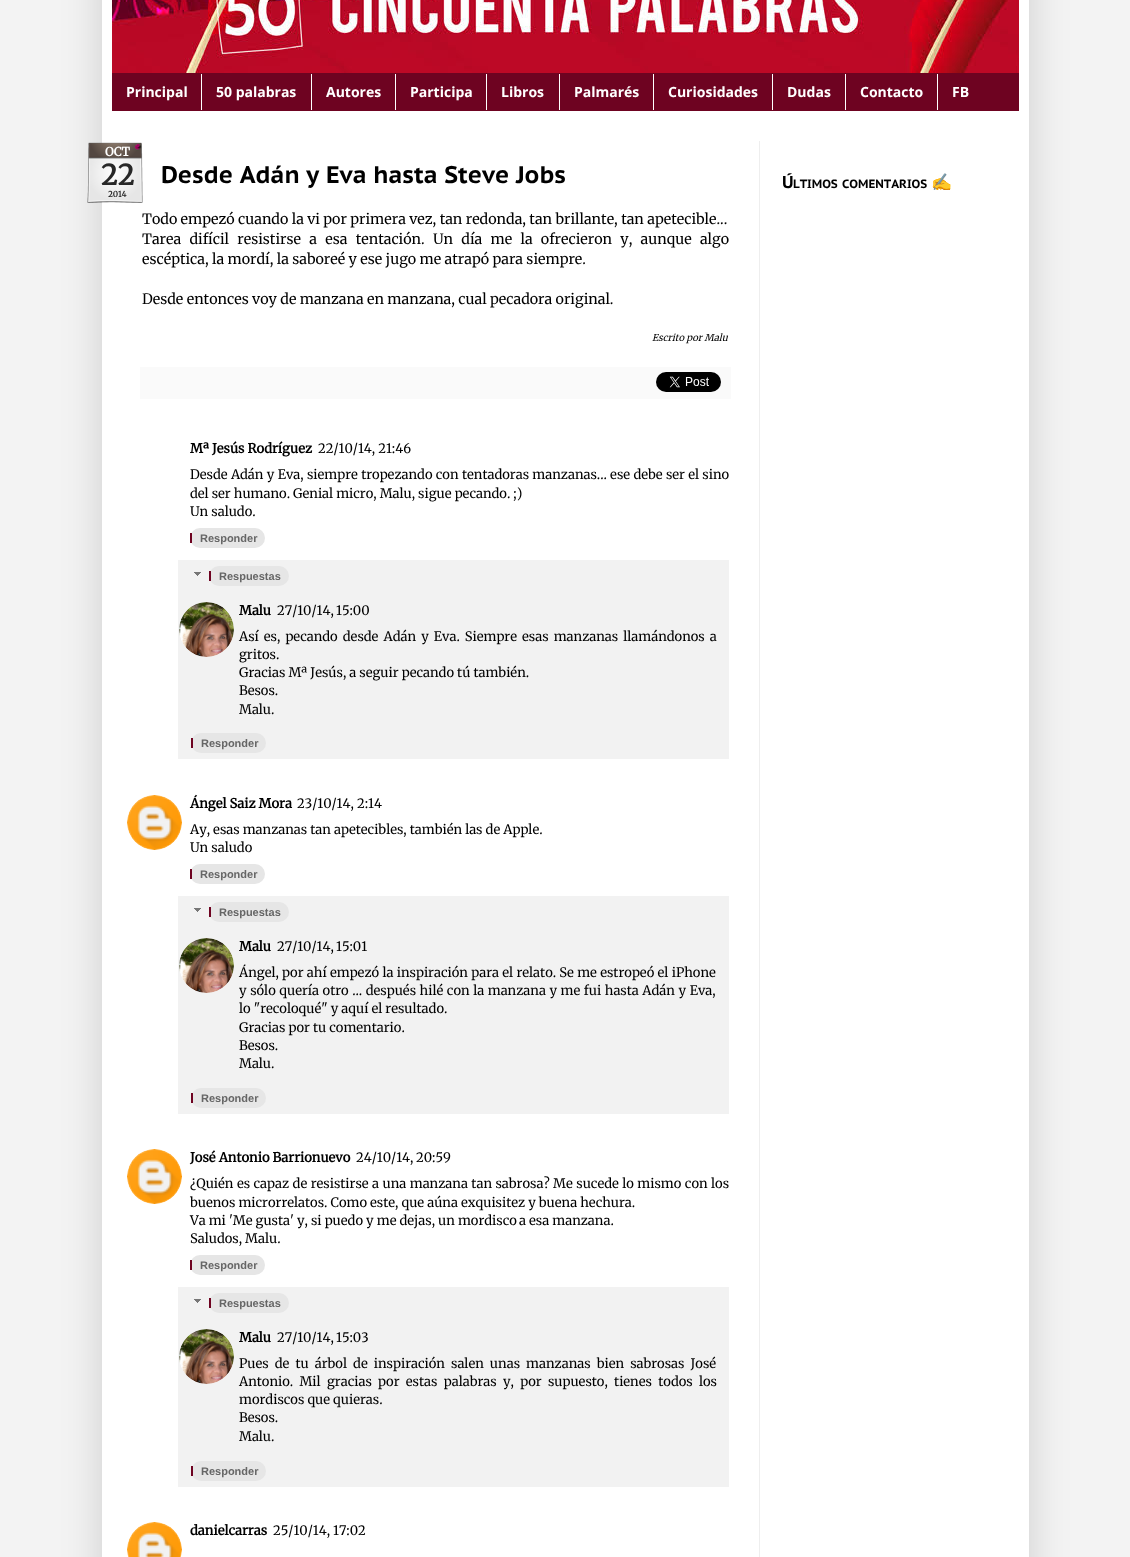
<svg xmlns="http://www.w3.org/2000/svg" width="1130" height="1557">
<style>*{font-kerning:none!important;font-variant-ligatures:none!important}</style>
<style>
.a{font:bold 14px Open Sans;fill:#fff}
.b{font:bold 12px Merriweather;fill:#fff}
.c{font:bold 28px Merriweather;fill:#282828}
.d{font:bold 8px Merriweather;fill:#282828}
.e{font:bold 24px PT Sans Caption;fill:#000}
.f{font:300 14.3px Merriweather;fill:#000}
.g{font:italic 300 9.5px Merriweather;fill:#000}
.h{font:bold 13px Merriweather;fill:#000}
.i{font:300 13px Merriweather;fill:#000}
.j{font:bold 11px Liberation Sans;fill:#666}
.k{font:bold 17px PT Sans Caption;fill:#000}
.l{font:bold 12px PT Sans Caption;fill:#000}
.m{font:bold 17px Noto Color Emoji;fill:#000}
</style>
<rect width="100%" height="100%" fill="#f3f3f3"/>
<path fill="#00000026" filter="blur(20px)" d="M102 -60h927v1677H102z"/>
<path fill="#fff" d="M102 0h927v1557H102z"/>
<image href="1.png" x="112" y="0" width="907" height="73"/>
<path fill="#6e0321" d="M112 73h907v38H112z"/>
<path fill="#fff" d="M201 74h1v36H201z"/>
<path fill="#fff" d="M311 74h1v36H311z"/>
<path fill="#fff" d="M395 74h1v36H395z"/>
<path fill="#fff" d="M486 74h1v36H486z"/>
<path fill="#fff" d="M559 74h1v36H559z"/>
<path fill="#fff" d="M653 74h1v36H653z"/>
<path fill="#fff" d="M772 74h1v36H772z"/>
<path fill="#fff" d="M845 74h1v36H845z"/>
<path fill="#fff" d="M937 74h1v36H937z"/>
<path fill="#eee" d="M759 141h1v1416H759z"/>
<image href="2.png" x="87" y="142" width="56" height="61"/>
<path fill="#fafafa" d="M140 367h591v32H140z"/>
<image href="3.png" x="656" y="372" width="65" height="20"/>
<rect fill="#e6e6e6" x="190" y="528" width="75" height="20" rx="10"/>
<path fill="#6e0321" d="M190 533h2v10H190z"/>
<path fill="#f2f2f2" d="M178 560h551v199H178z"/>
<image href="4.png" x="194" y="572" width="7" height="4"/>
<rect fill="#e6e6e6" x="209" y="566" width="80" height="20" rx="10"/>
<path fill="#6e0321" d="M209 571h2v10H209z"/>
<image href="5.png" x="179" y="602" width="55" height="55"/>
<rect fill="#e6e6e6" x="191" y="733" width="75" height="20" rx="10"/>
<path fill="#6e0321" d="M191 738h2v10H191z"/>
<image href="6.png" x="127" y="795" width="55" height="55"/>
<rect fill="#e6e6e6" x="190" y="864" width="75" height="20" rx="10"/>
<path fill="#6e0321" d="M190 869h2v10H190z"/>
<path fill="#f2f2f2" d="M178 896h551v218H178z"/>
<image href="4.png" x="194" y="908" width="7" height="4"/>
<rect fill="#e6e6e6" x="209" y="902" width="80" height="20" rx="10"/>
<path fill="#6e0321" d="M209 907h2v10H209z"/>
<image href="7.png" x="179" y="938" width="55" height="55"/>
<rect fill="#e6e6e6" x="191" y="1088" width="75" height="20" rx="10"/>
<path fill="#6e0321" d="M191 1093h2v10H191z"/>
<image href="8.png" x="127" y="1149" width="55" height="55"/>
<rect fill="#e6e6e6" x="190" y="1255" width="75" height="20" rx="10"/>
<path fill="#6e0321" d="M190 1260h2v10H190z"/>
<path fill="#f2f2f2" d="M178 1287h551v200H178z"/>
<image href="4.png" x="194" y="1299" width="7" height="4"/>
<rect fill="#e6e6e6" x="209" y="1293" width="80" height="20" rx="10"/>
<path fill="#6e0321" d="M209 1298h2v10H209z"/>
<image href="5.png" x="179" y="1329" width="55" height="55"/>
<rect fill="#e6e6e6" x="191" y="1461" width="75" height="20" rx="10"/>
<path fill="#6e0321" d="M191 1466h2v10H191z"/>
<image href="9.png" x="127" y="1522" width="55" height="35"/>
<text class="a" x="126" y="97">Principal</text>
<text class="a" x="216" y="97">50 palabras</text>
<text class="a" x="326" y="97">Autores</text>
<text class="a" x="410" y="97">Participa</text>
<text class="a" x="501" y="97">Libros</text>
<text class="a" x="574" y="97">Palmarés</text>
<text class="a" x="668" y="97">Curiosidades</text>
<text class="a" x="787" y="97">Dudas</text>
<text class="a" x="860" y="97">Contacto</text>
<text class="a" x="952" y="97">FB</text>
<text class="b" x="105" y="156">OCT</text>
<text class="c" x="101" y="185">22</text>
<text class="d" x="108" y="197">2014</text>
<text class="e" x="161" y="183">Desde Adán y Eva hasta Steve Jobs</text>
<text class="f" x="142" y="224">Todo empezó cuando la vi por primera vez, tan redonda, tan brillante, tan apetecible...</text>
<text class="f" x="142" y="244" word-spacing="4.9">Tarea difícil resistirse a esa tentación. Un día me la ofrecieron y, aunque algo</text>
<text class="f" x="142" y="264">escéptica, la mordí, la saboreé y ese jugo me atrapó para siempre.</text>
<text class="f" x="142" y="304">Desde entonces voy de manzana en manzana, cual pecadora original.</text>
<text class="g" x="652" y="341">Escrito por Malu</text>
<text class="h" x="190" y="453">Mª Jesús Rodríguez</text>
<text class="i" x="318" y="453">22/10/14, 21:46</text>
<text class="i" x="190" y="479" word-spacing="0.25">Desde Adán y Eva, siempre tropezando con tentadoras manzanas... ese debe ser el sino</text>
<text class="i" x="190" y="498">del ser humano. Genial micro, Malu, sigue pecando. ;)</text>
<text class="i" x="190" y="516">Un saludo.</text>
<text class="j" x="200" y="542">Responder</text>
<text class="j" x="219" y="580">Respuestas</text>
<text class="h" x="239" y="615">Malu</text>
<text class="i" x="277" y="615">27/10/14,</text>
<text class="i" x="336" y="615">15:00</text>
<text class="i" x="239" y="641" word-spacing="2">Así es, pecando desde Adán y Eva. Siempre esas manzanas llamándonos a</text>
<text class="i" x="239" y="659">gritos.</text>
<text class="i" x="239" y="677">Gracias Mª Jesús, a seguir pecando tú también.</text>
<text class="i" x="239" y="695">Besos.</text>
<text class="i" x="239" y="714">Malu.</text>
<text class="j" x="201" y="747">Responder</text>
<text class="h" x="190" y="808">Ángel Saiz Mora</text>
<text class="i" x="297" y="808">23/10/14,</text>
<text class="i" x="357" y="808">2:14</text>
<text class="i" x="190" y="834">Ay, esas manzanas tan apetecibles, también las de Apple.</text>
<text class="i" x="190" y="852">Un saludo</text>
<text class="j" x="200" y="878">Responder</text>
<text class="j" x="219" y="916">Respuestas</text>
<text class="h" x="239" y="951">Malu</text>
<text class="i" x="277" y="951">27/10/14,</text>
<text class="i" x="336" y="951">15:01</text>
<text class="i" x="239" y="977" word-spacing="0.25">Ángel, por ahí empezó la inspiración para el relato. Se me estropeó el iPhone</text>
<text class="i" x="239" y="995" word-spacing="0.5">y sólo quería otro ... después hilé con la manzana y me fui hasta Adán y Eva,</text>
<text class="i" x="239" y="1013">lo "recoloqué" y aquí el resultado.</text>
<text class="i" x="239" y="1032">Gracias por tu comentario.</text>
<text class="i" x="239" y="1050">Besos.</text>
<text class="i" x="239" y="1068">Malu.</text>
<text class="j" x="201" y="1102">Responder</text>
<text class="h" x="190" y="1162">José Antonio Barrionuevo</text>
<text class="i" x="356" y="1162">24/10/14,</text>
<text class="i" x="416" y="1162">20:59</text>
<text class="i" x="190" y="1188" word-spacing="0.4">¿Quién es capaz de resistirse a una manzana tan sabrosa? Me sucede lo mismo con los</text>
<text class="i" x="190" y="1207">buenos microrrelatos. Como este, que aúna exquisitez y buena hechura.</text>
<text class="i" x="190" y="1225">Va mi 'Me gusta' y, si puedo y me dejas, un mordisco</text>
<text class="i" x="519" y="1225">a esa manzana.</text>
<text class="i" x="190" y="1243">Saludos, Malu.</text>
<text class="j" x="200" y="1269">Responder</text>
<text class="j" x="219" y="1307">Respuestas</text>
<text class="h" x="239" y="1342">Malu</text>
<text class="i" x="277" y="1342">27/10/14,</text>
<text class="i" x="336" y="1342">15:03</text>
<text class="i" x="239" y="1368" word-spacing="3">Pues de tu árbol de inspiración salen unas manzanas bien sabrosas José</text>
<text class="i" x="239" y="1386" word-spacing="3.25">Antonio. Mil gracias por estas palabras y, por supuesto, tienes todos los</text>
<text class="i" x="239" y="1404">mordiscos que quieras.</text>
<text class="i" x="239" y="1422">Besos.</text>
<text class="i" x="239" y="1441">Malu.</text>
<text class="j" x="201" y="1475">Responder</text>
<text class="h" x="190" y="1535">danielcarras</text>
<text class="i" x="273" y="1535">25/10/14,</text>
<text class="i" x="333" y="1535">17:02</text>
<text class="k" x="782" y="188">Ú</text>
<text class="l" x="793" y="188">LTIMOS</text>
<text class="l" x="842" y="188">COMENTARIOS</text>
<text class="m" x="931" y="188">✍</text>
</svg>
